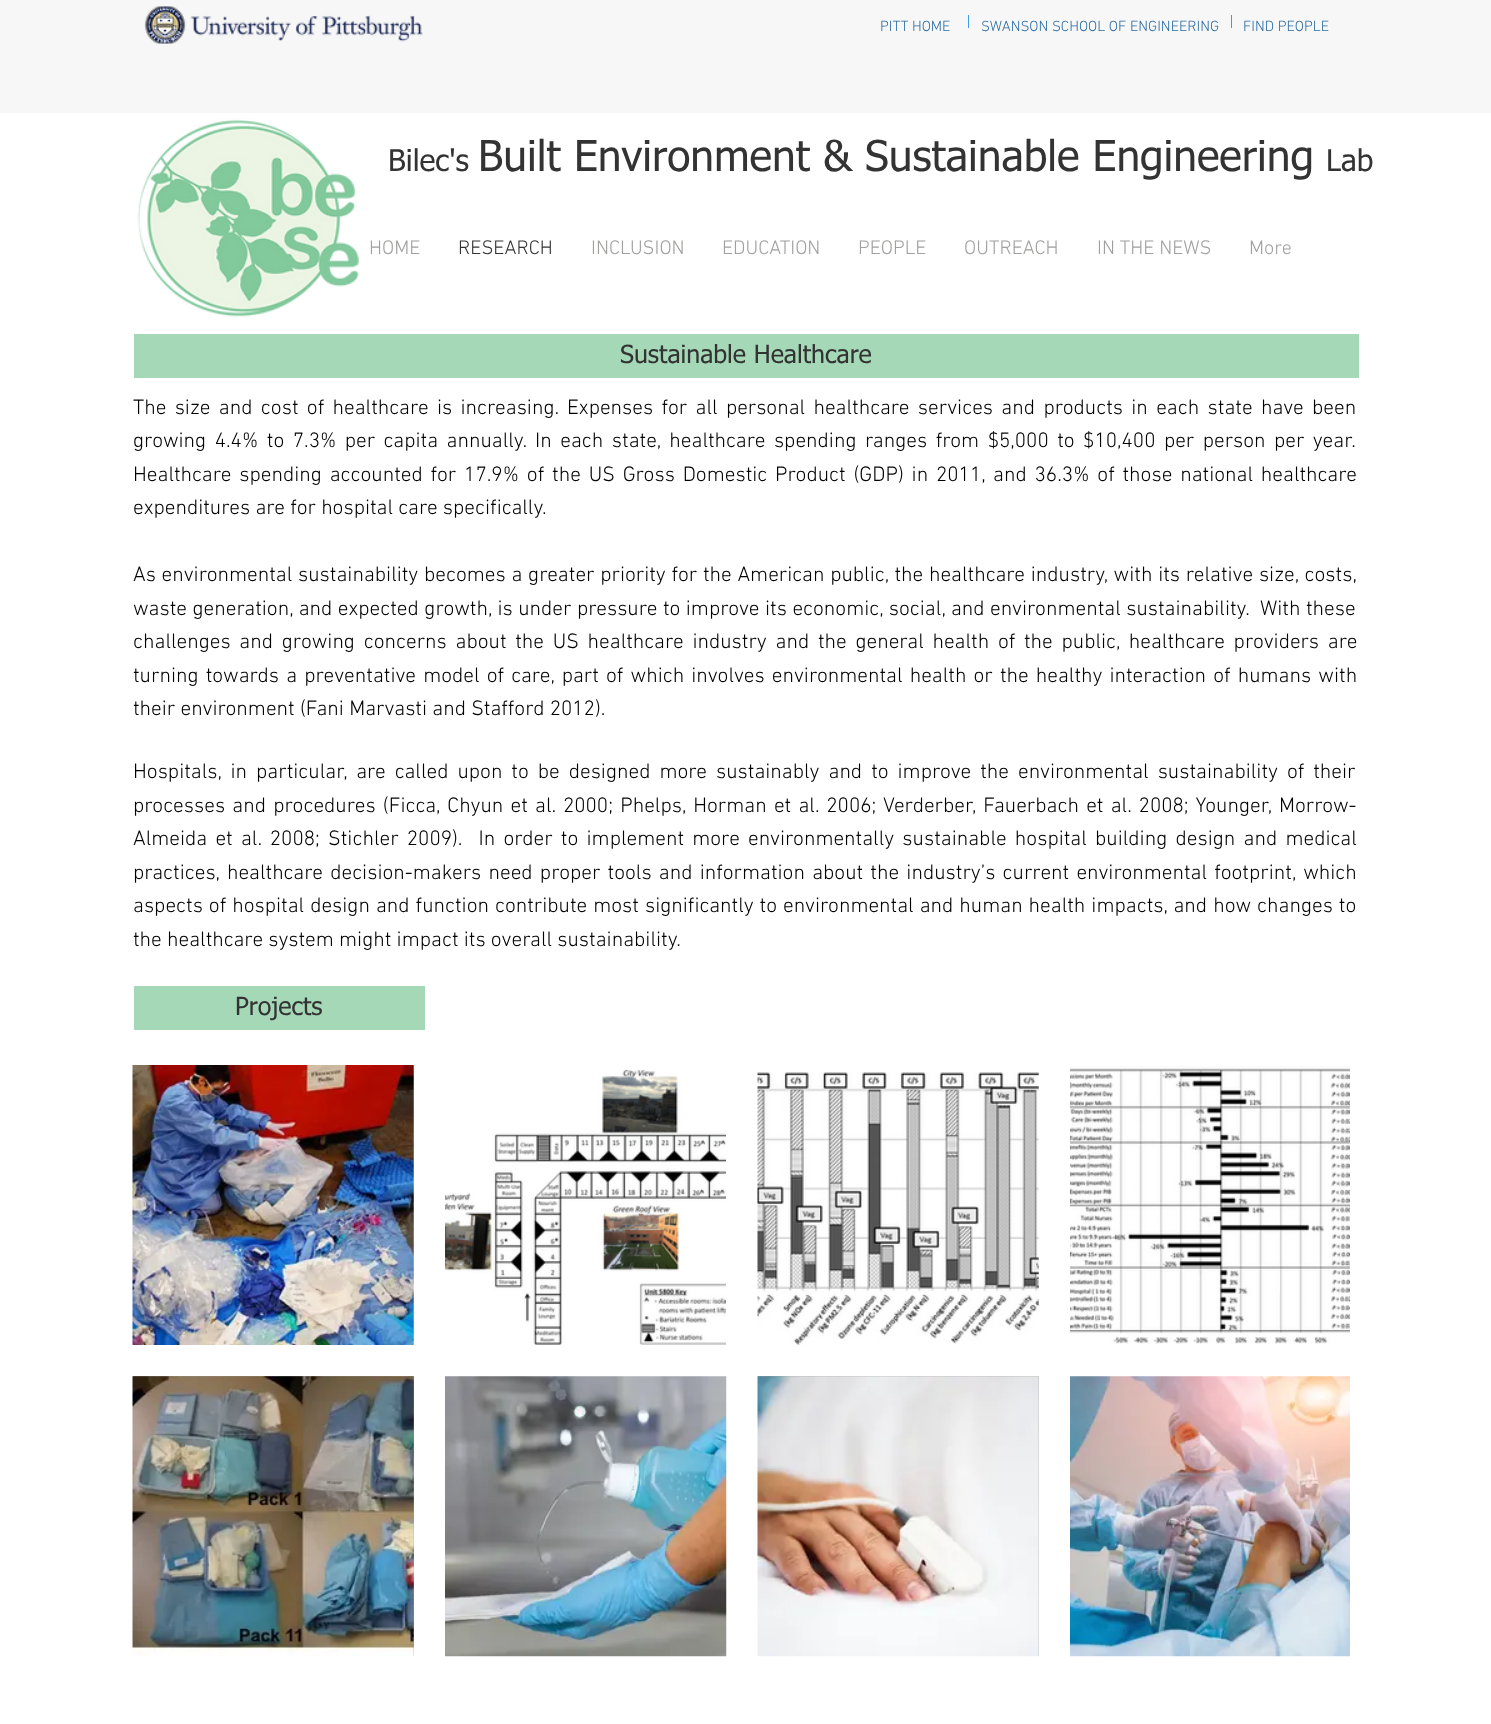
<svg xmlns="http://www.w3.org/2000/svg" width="1491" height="1724">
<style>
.a{font:300 15px 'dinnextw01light';fill:#2b6ca3}
.b{font:30px tahoma;fill:#333}
.c{font:42.5px tahoma;fill:#333}
.d{font:300 20px 'dinnextw01light';fill:#a0a09f}
.e{font:300 20px 'dinnextw01light';fill:#333}
.f{font:25px tahoma;fill:#333}
.g{font:300 21.25px 'dinnextw01light';fill:#000}
</style>
<rect width="100%" height="100%" fill="#fff"/>
<path fill="#f7f7f7" d="M0 0h1491v113H0z"/>
<image href="1.png" x="144" y="6" width="279" height="38"/>
<path fill="#3d9be9" d="M968 15h1v13H968z"/>
<path fill="#3d9be9" d="M1231 15h1v13H1231z"/>
<image href="2.png" x="137" y="119" width="222" height="198"/>
<path fill="#a4d8b7" d="M134 334h1225v44H134z"/>
<path fill="#a4d8b7" d="M134 986h291v44H134z"/>
<image href="3.png" x="132" y="1065" width="282" height="280"/>
<image href="4.png" x="445" y="1069" width="281" height="276"/>
<image href="5.png" x="757" y="1072" width="282" height="273"/>
<image href="6.png" x="1070" y="1066" width="280" height="278"/>
<path fill="#a0a09f" d="M133 1376h281v280H133z"/>
<image href="7.png" x="132" y="1376" width="282" height="280"/>
<image href="8.png" x="445" y="1376" width="282" height="281"/>
<path fill="#a0a09f" d="M758 1376h281v280H758z"/>
<image href="9.png" x="757" y="1376" width="282" height="281"/>
<image href="10.png" x="1070" y="1376" width="280" height="281"/>
<text class="a" x="880" y="31">PITT HOME</text>
<text class="a" x="981" y="31">SWANSON SCHOOL OF ENGINEERING</text>
<text class="a" x="1243" y="31">FIND PEOPLE</text>
<text class="b" x="388" y="171">Bilec's</text>
<text class="c" x="478" y="171">Built Environment &amp; Sustainable Engineering</text>
<text class="b" x="1326" y="171">Lab</text>
<text class="d" x="369" y="254">HOME</text>
<text class="e" x="458" y="254">RESEARCH</text>
<text class="d" x="591" y="254">INCLUSION</text>
<text class="d" x="722" y="254">EDUCATION</text>
<text class="d" x="858" y="254">PEOPLE</text>
<text class="d" x="964" y="254">OUTREACH</text>
<text class="d" x="1097" y="254">IN THE NEWS</text>
<text class="d" x="1249" y="254">More</text>
<text class="f" x="620" y="363">Sustainable Healthcare</text>
<text class="g" x="133" y="414" word-spacing="3.1">The size and cost of healthcare is increasing. Expenses for all personal healthcare services and products in each state have been</text>
<text class="g" x="133" y="447" word-spacing="3.25">growing 4.4% to 7.3% per capita annually. In each state, healthcare spending ranges from $5,000 to $10,400 per person per year.</text>
<text class="g" x="133" y="481" word-spacing="2.6">Healthcare spending accounted for 17.9% of the US Gross Domestic Product (GDP) in 2011, and 36.3% of those national healthcare</text>
<text class="g" x="133" y="514">expenditures are for hospital care specifically.</text>
<text class="g" x="133" y="581" word-spacing="0.5">As environmental sustainability becomes a greater priority for the American public, the healthcare industry, with its relative size, costs,</text>
<text class="g" xml:space="preserve" x="133" y="615" word-spacing="0.25">waste generation, and expected growth, is under pressure to improve its economic, social, and environmental sustainability.  With these</text>
<text class="g" x="133" y="648" word-spacing="3.5">challenges and growing concerns about the US healthcare industry and the general health of the public, healthcare providers are</text>
<text class="g" x="133" y="682" word-spacing="1.9">turning towards a preventative model of care, part of which involves environmental health or the healthy interaction of humans with</text>
<text class="g" x="133" y="715">their environment (Fani Marvasti and Stafford 2012).</text>
<text class="g" x="133" y="778" word-spacing="3.75">Hospitals, in particular, are called upon to be designed more sustainably and to improve the environmental sustainability of their</text>
<text class="g" x="133" y="812" word-spacing="2">processes and procedures (Ficca, Chyun et al. 2000; Phelps, Horman et al. 2006; Verderber, Fauerbach et al. 2008; Younger, Morrow-</text>
<text class="g" xml:space="preserve" x="133" y="845" word-spacing="3">Almeida et al. 2008; Stichler 2009).  In order to implement more environmentally sustainable hospital building design and medical</text>
<text class="g" x="133" y="879" word-spacing="2">practices, healthcare decision-makers need proper tools and information about the industry’s current environmental footprint, which</text>
<text class="g" x="133" y="912" word-spacing="0.75">aspects of hospital design and function contribute most significantly to environmental and human health impacts, and how changes to</text>
<text class="g" x="133" y="946">the healthcare system might impact its overall sustainability.</text>
<text class="f" x="235" y="1015">Projects</text>
</svg>
